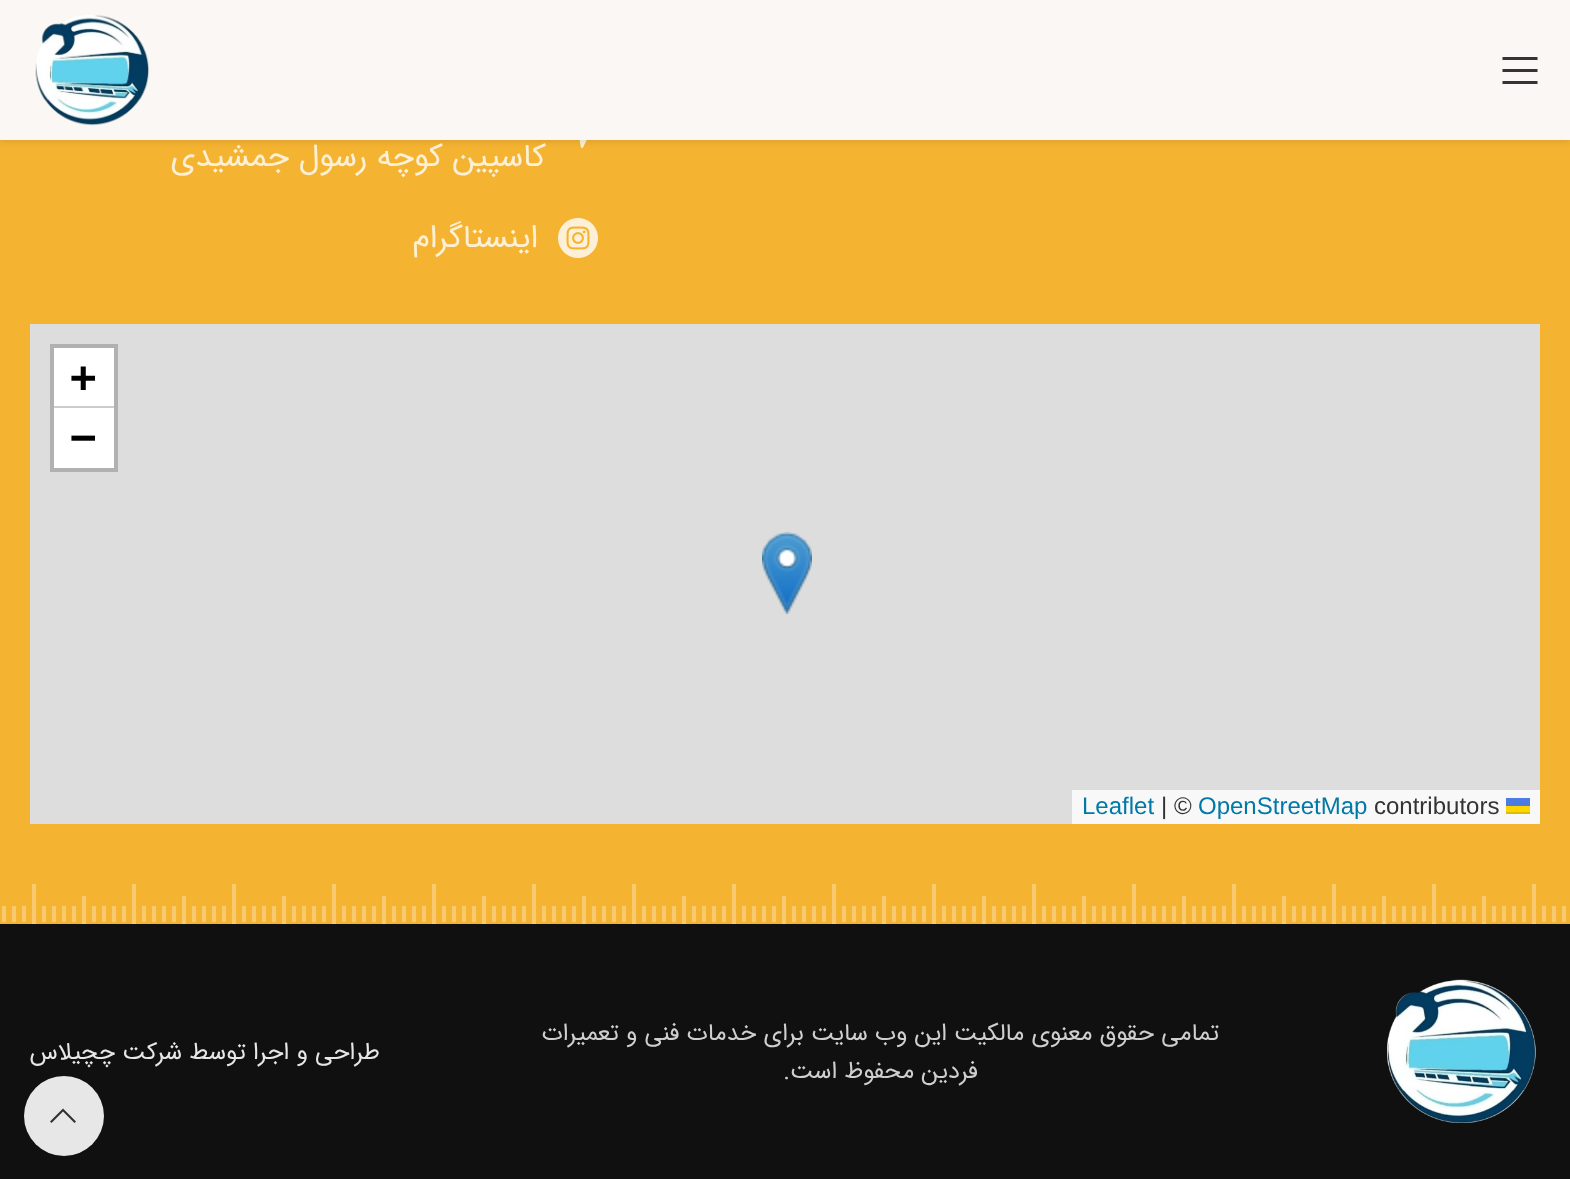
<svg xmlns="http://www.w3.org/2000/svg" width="1570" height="1179">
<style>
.a{font:32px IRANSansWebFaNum;direction:rtl;fill:#fdf0d6}
.b{font:bold 44px DejaVu Sans Mono;fill:#000}
.c{font:24px Liberation Sans;fill:#333}
.d{font:24px Liberation Sans;fill:#0078a8}
.e{font:24px IRANSansWebFaNum;direction:rtl;fill:#cfcfcf}
.f{font:24px IRANSansWebFaNum;direction:rtl;fill:#e7e7e7}
</style>
<rect width="100%" height="100%" fill="#101010"/>
<path fill="#f5b332" d="M0 140h1570v784H0z"/>
<image href="3.png" x="579" y="140" width="8" height="8"/>
<path fill="#0000001a" filter="blur(3px)" d="M0 2h1570v140H0z"/>
<path fill="#faf7f4" d="M0 0h1570v140H0z"/>
<path fill="#333" d="M1502.5 60h35v-3h-35zm0 12h35v-3h-35zm0 12h35v-3h-35z"/>
<image href="1.png" x="35" y="14" width="115" height="112"/>
<image href="2.png" x="2" y="884" width="1564" height="40"/>
<image href="4.png" x="558" y="218" width="40" height="40"/>
<path fill="#ddd" d="M30 324h1510v500H30z"/>
<path fill="none" stroke="#b1b1b1" stroke-width="4" d="M52 346h64v124H52z"/>
<path fill="#fff" d="M54 348h60v58H54z"/>
<path fill="#ccc" d="M54 406h60v2H54z"/>
<path fill="#fff" d="M54 408h60v60H54z"/>
<path fill="#f8f8f8" d="M1072 790h468v34H1072z"/>
<path fill="#4c7be1" d="M1506 798h24v8H1506z"/>
<path fill="#ffd500" d="M1506 806h24v6H1506z"/>
<path fill="#e0bc00" d="M1506 812h24v2H1506z"/>
<image href="5.png" x="762" y="532" width="50" height="82"/>
<image href="6.png" x="1387" y="979" width="149" height="144"/>
<circle fill="#e7e7e7" cx="64" cy="1116" r="40"/>
<path fill="#333" d="M74.5 1123l1.5-1.5l-13-13l-13 13l1.5 1.5l11.5-11.5z"/>
<text class="a" x="546" y="166">کاسپین کوچه رسول جمشیدی</text>
<text class="a" x="538" y="247">اینستاگرام</text>
<text class="b" x="70" y="392">+</text>
<text class="b" x="70" y="452">−</text>
<text class="c" x="1374" y="814">contributors</text>
<text class="d" x="1198" y="814">OpenStreetMap</text>
<text class="c" x="1161" y="814">| ©</text>
<text class="d" x="1082" y="814">Leaflet</text>
<text class="e" x="1219" y="1040">تمامی حقوق معنوی مالکیت این وب‌ سایت برای خدمات فنی و تعمیرات</text>
<text class="e" x="978" y="1078">فردین محفوظ است.</text>
<text class="f" x="380" y="1059">طراحی و اجرا توسط شرکت چچیلاس</text>
</svg>
